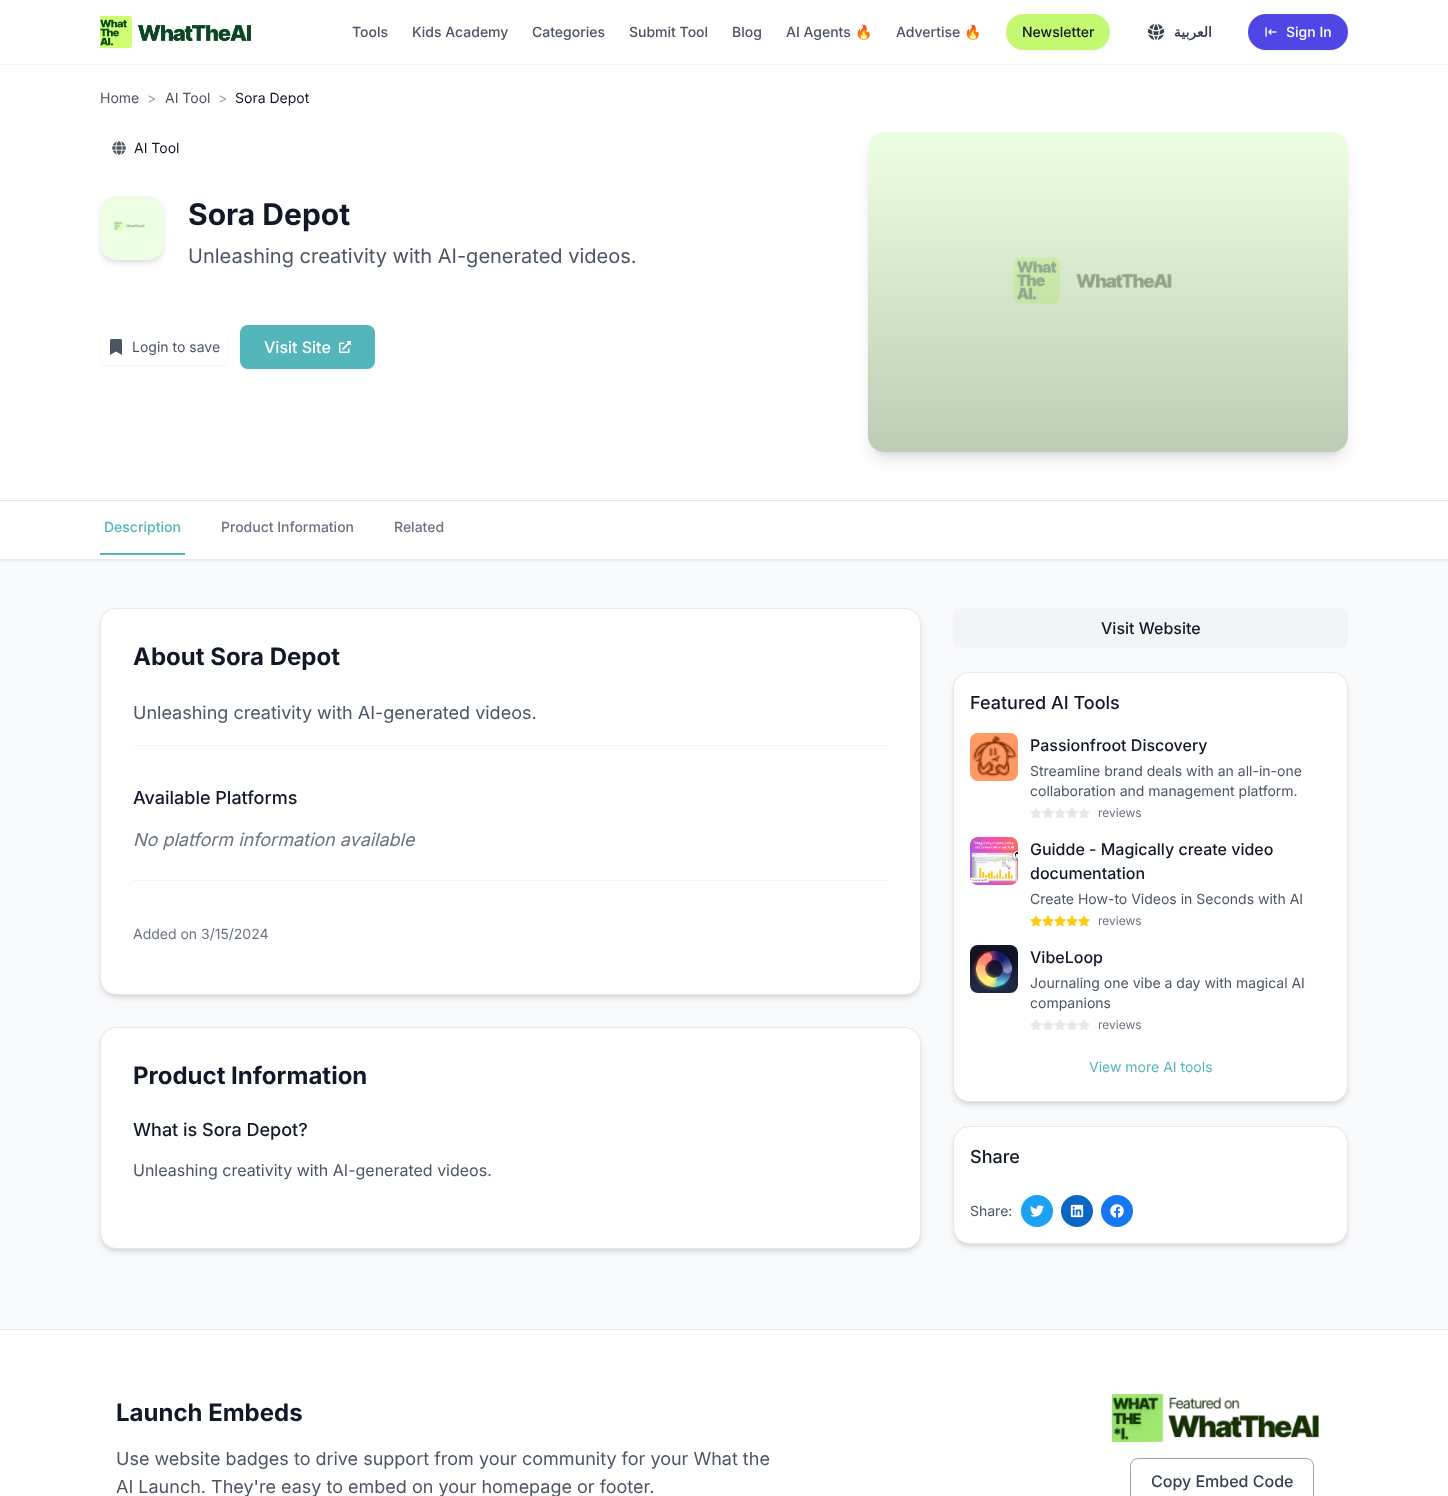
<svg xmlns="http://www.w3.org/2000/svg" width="1448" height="1496">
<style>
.a{font:500 14px Inter;fill:#4b5563}
.b{font:14px Noto Color Emoji;fill:#4b5563}
.c{font:500 14px Inter;fill:#111827}
.d{font:bold 14px DejaVu Sans;direction:rtl;fill:#374151}
.e{font:500 14px Inter;fill:#fff}
.f{font:14px Inter;fill:#4b5563}
.g{font:14px Inter;fill:#9ca3af}
.h{font:14px Inter;fill:#111827}
.i{font:bold 30px Inter;fill:#111827}
.j{font:20px Inter;fill:#4b5563}
.k{font:500 16px Inter;fill:#fff}
.l{font:500 14px Inter;fill:#54b5ba}
.m{font:500 14px Inter;fill:#6b7280}
.n{font:bold 24px Inter;fill:#111827}
.o{font:18px Inter;fill:#4b5563}
.p{font:500 18px Inter;fill:#111827}
.q{font:italic 18px Inter;fill:#6b7280}
.r{font:14px Inter;fill:#6b7280}
.s{font:16px Inter;fill:#4b5563}
.t{font:500 16px Inter;fill:#111827}
.u{font:12px Inter;fill:#6b7280}
.v{font:14px Inter;fill:#54b5ba}
.w{font:500 16px Inter;fill:#374151}
</style>
<defs>
<linearGradient id="g1" gradientUnits="userSpaceOnUse" x1="1108" y1="452" x2="1108" y2="132"><stop offset="0" stop-color="#000" stop-opacity="0.2"/><stop offset="1" stop-color="#000" stop-opacity="0"/></linearGradient>
</defs>
<rect width="100%" height="100%" fill="#f9fafb"/>
<path fill="#fff" d="M0 0h1448v500H0z"/>
<path fill="#f3f4f6" d="M0 64h1448v1H0z"/>
<image href="1.png" x="100" y="16" width="151" height="32"/>
<rect fill="#0000000d" filter="blur(1px)" x="1006" y="15" width="104" height="36" rx="18"/>
<rect fill="#c2f970" x="1006" y="14" width="104" height="36" rx="18"/>
<image href="2.png" x="1147" y="24" width="18" height="16"/>
<rect fill="#0000000d" filter="blur(1px)" x="1248" y="15" width="100" height="36" rx="18"/>
<rect fill="#4f46e5" x="1248" y="14" width="100" height="36" rx="18"/>
<image href="3.png" x="1265" y="27" width="12" height="10"/>
<path fill="#e5e7eb" d="M0 500h1448v1H0z"/>
<image href="4.png" x="112" y="141" width="14" height="14"/>
<rect fill="#0000001a" filter="blur(2px)" x="102" y="200" width="60" height="60" rx="14"/>
<rect fill="#0000001a" filter="blur(3px)" x="101" y="201" width="62" height="62" rx="15"/>
<rect fill="#fff" stroke="#f3f4f6" x="100.5" y="196.5" width="63" height="63" rx="15.5"/>
<image href="5.png" x="101" y="197" width="62" height="62"/>
<rect fill="#0000000d" filter="blur(1px)" x="100" y="330" width="128" height="36" rx="8"/>
<rect fill="#fff" x="100" y="329" width="128" height="36" rx="8"/>
<image href="6.png" x="110" y="339" width="12" height="16"/>
<rect fill="#0000000d" filter="blur(1px)" x="240" y="326" width="135" height="44" rx="8"/>
<rect fill="#54b5ba" x="240" y="325" width="135" height="44" rx="8"/>
<image href="7.png" x="339" y="341" width="12" height="12"/>
<rect fill="#0000001a" filter="blur(3px)" x="872" y="140" width="472" height="312" rx="12"/>
<rect fill="#0000001a" filter="blur(7.5px)" x="871" y="145" width="474" height="314" rx="13"/>
<rect fill="#f3f4f6" x="868" y="132" width="480" height="320" rx="16"/>
<image href="8.png" x="868" y="132" width="480" height="320"/>
<rect fill="url(#g1)" x="868" y="132" width="480" height="320" rx="16"/>
<path fill="#0000000d" filter="blur(1px)" d="M0 502h1448v59H0z"/>
<path fill="#fff" d="M0 501h1448v58H0z"/>
<path fill="#e5e7eb" d="M0 559h1448v1H0z"/>
<path fill="#54b5ba" d="M100 553h85v2H100z"/>
<rect fill="#0000001a" filter="blur(2px)" x="102" y="612" width="817" height="383" rx="14"/>
<rect fill="#0000001a" filter="blur(3px)" x="101" y="613" width="819" height="385" rx="15"/>
<rect fill="#fff" stroke="#e5e7eb" x="100.5" y="608.5" width="820" height="386" rx="15.5"/>
<path fill="#f3f4f6" d="M133 745h755v1H133z"/>
<path fill="#f3f4f6" d="M133 880h755v1H133z"/>
<rect fill="#0000001a" filter="blur(2px)" x="102" y="1031" width="817" height="218" rx="14"/>
<rect fill="#0000001a" filter="blur(3px)" x="101" y="1032" width="819" height="220" rx="15"/>
<rect fill="#fff" stroke="#e5e7eb" x="100.5" y="1027.5" width="820" height="221" rx="15.5"/>
<rect fill="#f3f4f6" x="953" y="608" width="395" height="40" rx="8"/>
<rect fill="#0000001a" filter="blur(2px)" x="955" y="676" width="391" height="426" rx="14"/>
<rect fill="#0000001a" filter="blur(3px)" x="954" y="677" width="393" height="428" rx="15"/>
<rect fill="#fff" stroke="#e5e7eb" x="953.5" y="672.5" width="394" height="429" rx="15.5"/>
<rect fill="#f3f4f6" x="970" y="733" width="48" height="48" rx="8"/>
<image href="9.png" x="970" y="733" width="48" height="48"/>
<image href="10.png" x="1030" y="808" width="12" height="10"/>
<image href="10.png" x="1042" y="808" width="12" height="10"/>
<image href="10.png" x="1054" y="808" width="12" height="10"/>
<image href="10.png" x="1066" y="808" width="12" height="10"/>
<image href="10.png" x="1078" y="808" width="12" height="10"/>
<rect fill="#f3f4f6" x="970" y="837" width="48" height="48" rx="8"/>
<image href="11.png" x="970" y="837" width="48" height="48"/>
<image href="12.png" x="1030" y="915" width="12" height="12"/>
<image href="12.png" x="1042" y="915" width="12" height="12"/>
<image href="12.png" x="1054" y="915" width="12" height="12"/>
<image href="12.png" x="1066" y="915" width="12" height="12"/>
<image href="12.png" x="1078" y="915" width="12" height="12"/>
<rect fill="#f3f4f6" x="970" y="945" width="48" height="48" rx="8"/>
<image href="13.png" x="970" y="945" width="48" height="48"/>
<image href="10.png" x="1030" y="1020" width="12" height="10"/>
<image href="10.png" x="1042" y="1020" width="12" height="10"/>
<image href="10.png" x="1054" y="1020" width="12" height="10"/>
<image href="10.png" x="1066" y="1020" width="12" height="10"/>
<image href="10.png" x="1078" y="1020" width="12" height="10"/>
<rect fill="#0000001a" filter="blur(2px)" x="955" y="1130" width="391" height="114" rx="14"/>
<rect fill="#0000001a" filter="blur(3px)" x="954" y="1131" width="393" height="116" rx="15"/>
<rect fill="#fff" stroke="#e5e7eb" x="953.5" y="1126.5" width="394" height="117" rx="15.5"/>
<circle fill="#1da1f2" cx="1037" cy="1211" r="16"/>
<image href="14.png" x="1030" y="1205" width="14" height="12"/>
<circle fill="#0a66c2" cx="1077" cy="1211" r="16"/>
<image href="15.png" x="1070" y="1204" width="14" height="14"/>
<circle fill="#1877f2" cx="1117" cy="1211" r="16"/>
<image href="16.png" x="1110" y="1204" width="14" height="14"/>
<path fill="#fff" d="M0 1330h1448v166H0z"/>
<path fill="#e5e7eb" d="M0 1329h1448v1H0z"/>
<image href="17.png" x="1112" y="1394" width="208" height="48"/>
<rect fill="none" stroke="#9ca3af" x="1130.5" y="1458.5" width="183" height="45" rx="7.5"/>
<text class="a" x="352" y="37">Tools</text>
<text class="a" x="412" y="37">Kids Academy</text>
<text class="a" x="532" y="37">Categories</text>
<text class="a" x="629" y="37">Submit Tool</text>
<text class="a" x="732" y="37">Blog</text>
<text class="a" x="786" y="37">AI Agents</text>
<text class="b" x="855" y="37">🔥</text>
<text class="a" x="896" y="37">Advertise</text>
<text class="b" x="964" y="37">🔥</text>
<text class="c" x="1022" y="37">Newsletter</text>
<text class="d" x="1212" y="37">العربية</text>
<text class="e" x="1286" y="37">Sign In</text>
<text class="f" x="100" y="103">Home</text>
<text class="g" x="147" y="103">&gt;</text>
<text class="f" x="165" y="103">AI Tool</text>
<text class="g" x="218" y="103">&gt;</text>
<text class="h" x="235" y="103">Sora Depot</text>
<text class="h" x="134" y="153">AI Tool</text>
<text class="i" x="188" y="225">Sora Depot</text>
<text class="j" x="188" y="263">Unleashing creativity with AI-generated videos.</text>
<text class="f" x="132" y="352">Login to save</text>
<text class="k" x="264" y="353">Visit Site</text>
<text class="l" x="104" y="532">Description</text>
<text class="m" x="221" y="532">Product Information</text>
<text class="m" x="394" y="532">Related</text>
<text class="n" x="133" y="665">About Sora Depot</text>
<text class="o" x="133" y="719">Unleashing creativity with AI-generated videos.</text>
<text class="p" x="133" y="804">Available Platforms</text>
<text class="q" x="133" y="846">No platform information available</text>
<text class="r" x="133" y="939">Added on 3/15/2024</text>
<text class="n" x="133" y="1084">Product Information</text>
<text class="p" x="133" y="1136">What is Sora Depot?</text>
<text class="s" x="133" y="1176">Unleashing creativity with AI-generated videos.</text>
<text class="t" x="1101" y="634">Visit Website</text>
<text class="p" x="970" y="709">Featured AI Tools</text>
<text class="t" x="1030" y="751">Passionfroot Discovery</text>
<text class="f" x="1030" y="776">Streamline brand deals with an all-in-one</text>
<text class="f" x="1030" y="796">collaboration and management platform.</text>
<text class="u" x="1098" y="817">reviews</text>
<text class="t" x="1030" y="855">Guidde - Magically create video</text>
<text class="t" x="1030" y="879">documentation</text>
<text class="f" x="1030" y="904">Create How-to Videos in Seconds with AI</text>
<text class="u" x="1098" y="925">reviews</text>
<text class="t" x="1030" y="963">VibeLoop</text>
<text class="f" x="1030" y="988">Journaling one vibe a day with magical AI</text>
<text class="f" x="1030" y="1008">companions</text>
<text class="u" x="1098" y="1029">reviews</text>
<text class="v" x="1089" y="1072">View more AI tools</text>
<text class="p" x="970" y="1163">Share</text>
<text class="f" x="970" y="1216">Share:</text>
<text class="n" x="116" y="1421">Launch Embeds</text>
<text class="o" x="116" y="1465">Use website badges to drive support from your community for your What the</text>
<text class="o" x="116" y="1493">AI Launch. They're easy to embed on your homepage or footer.</text>
<text class="w" x="1151" y="1487">Copy Embed Code</text>
</svg>
